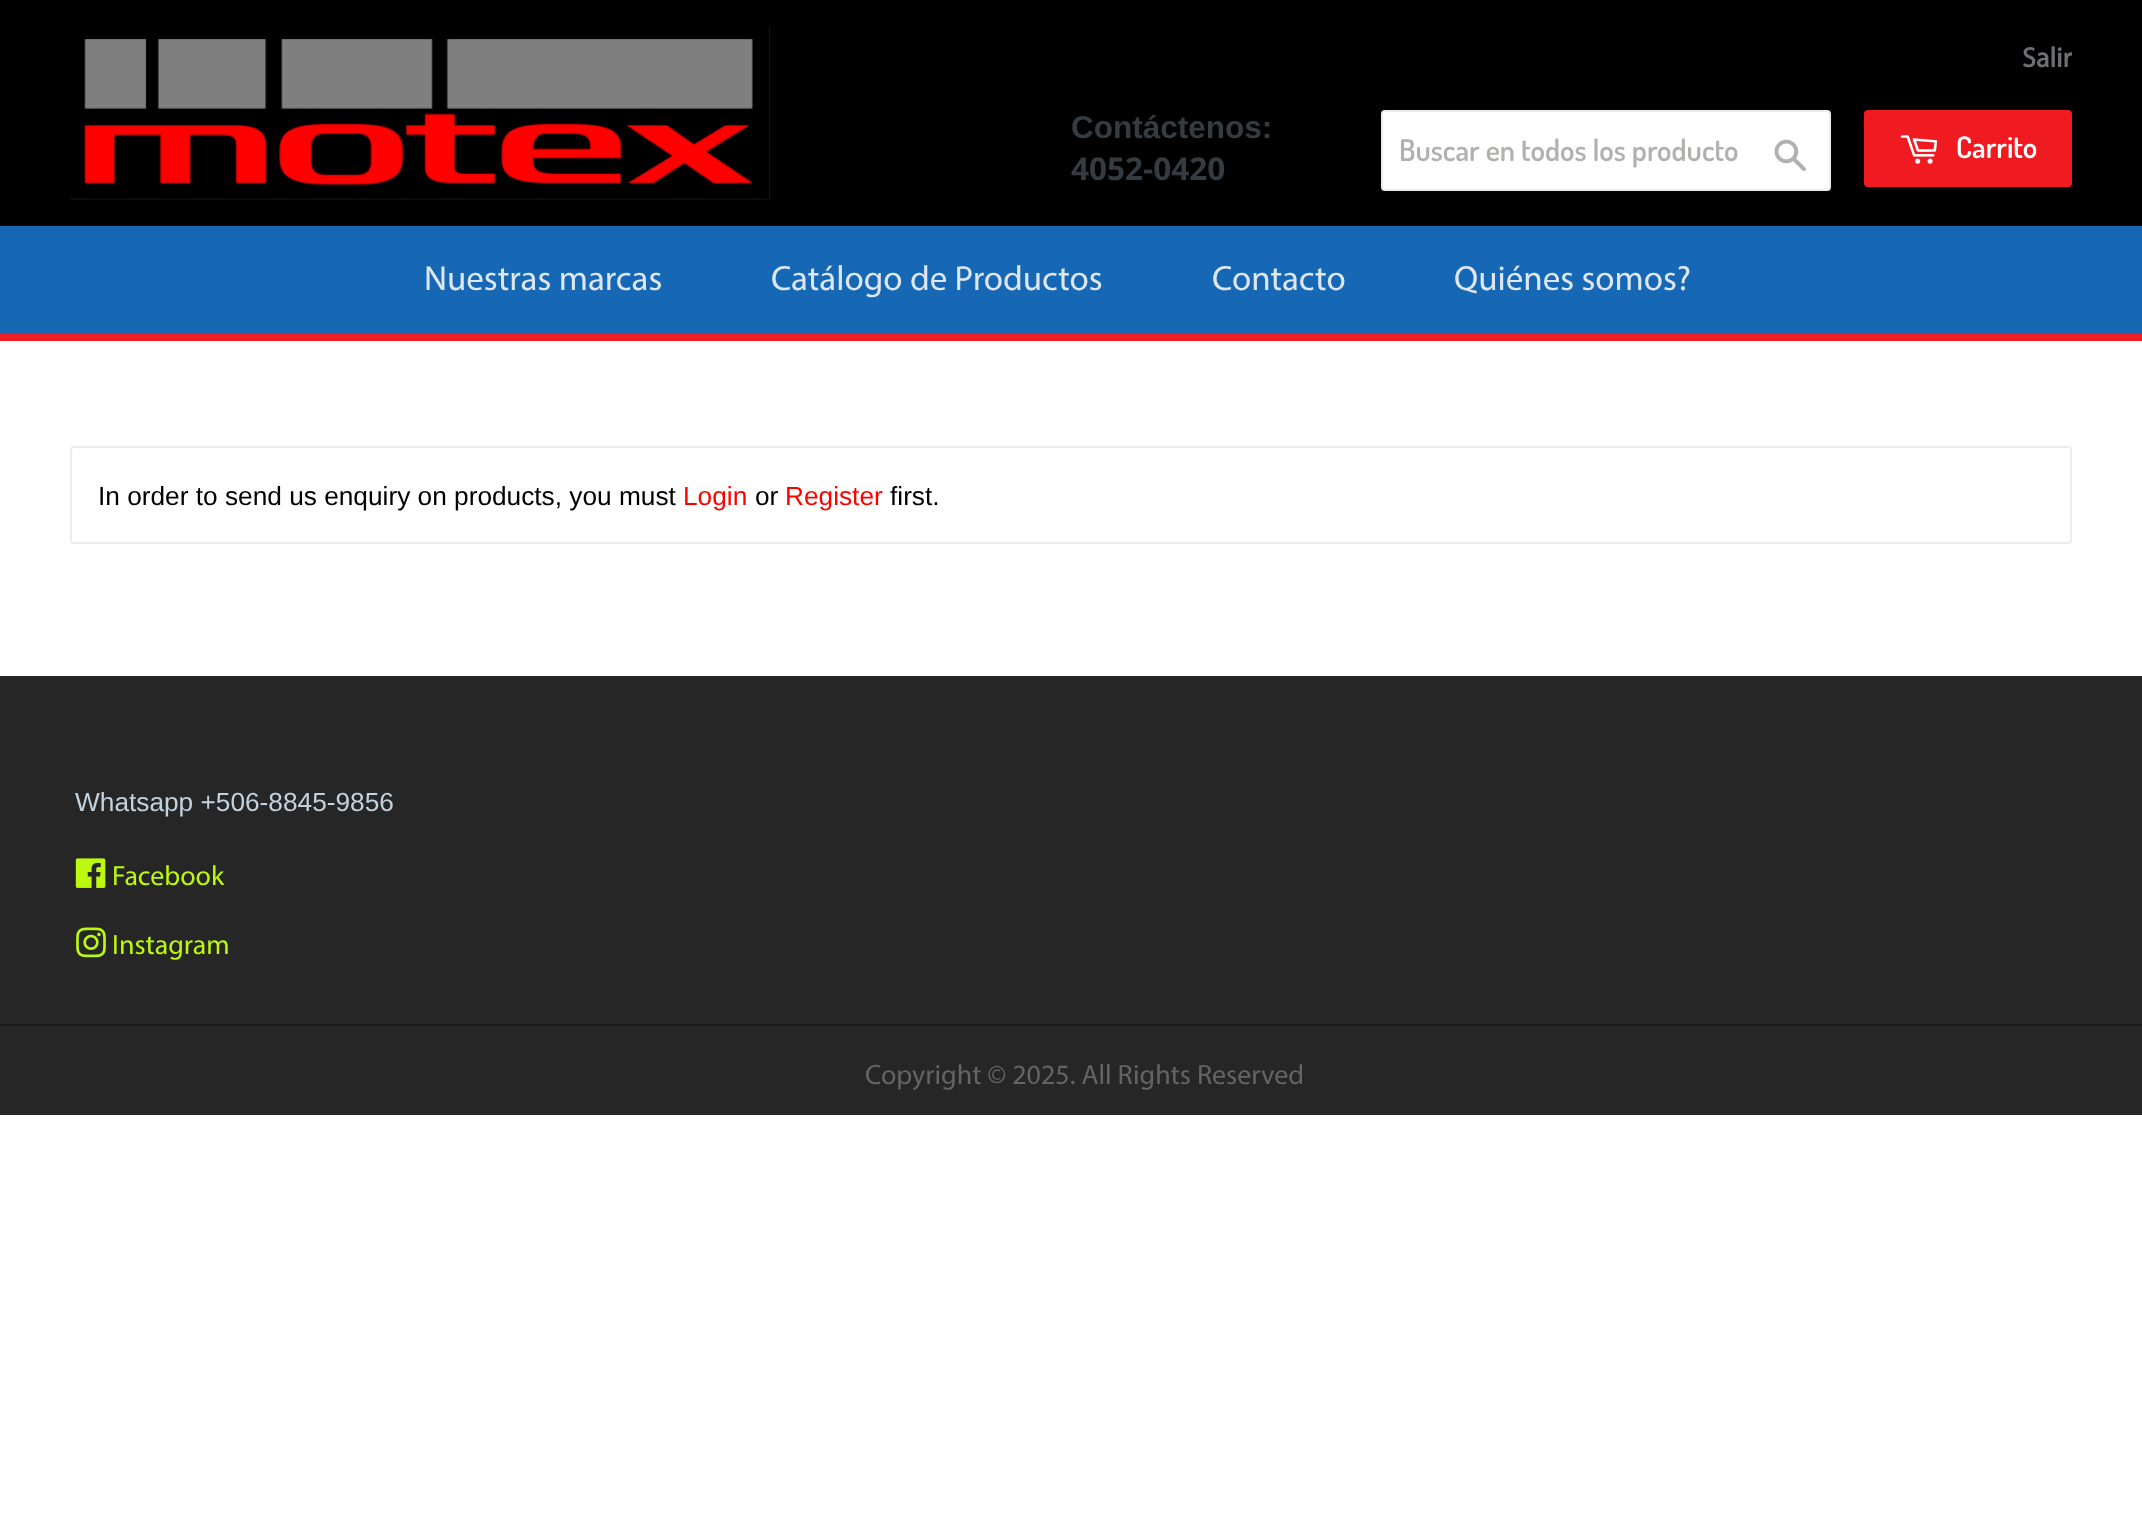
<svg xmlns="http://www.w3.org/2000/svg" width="2142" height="1518">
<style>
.a{font:bold 28px Myriad;fill:#6d6f73}
.b{font:bold 31.5px Liberation Sans;fill:#353c41}
.c{font:bold 31.5px Open Sans;fill:#353c41}
.d{font:600 29.75px Dosis;fill:#b3b0b0}
.e{font:600 29.75px Dosis;fill:#fff}
.f{font:35px Myriad;fill:#dee6f1}
.g{font:26.25px Liberation Sans;fill:#000}
.h{font:26.25px Liberation Sans;fill:#f00}
.i{font:26.25px Liberation Sans;fill:#c2d2de}
.j{font:28px Myriad;fill:#bdf90e}
.k{font:28px Myriad;fill:#646464}
</style>
<rect width="100%" height="100%" fill="#fff"/>
<path fill="#000" d="M0 0h2142v226H0z"/>
<image href="1.png" x="70" y="26" width="700" height="174"/>
<rect fill="#fff" stroke="#ececec" stroke-width="2" x="1382" y="111" width="448" height="79" rx="3"/>
<image href="2.png" x="1774" y="139" width="32" height="32"/>
<rect fill="#ef1b21" x="1864" y="110" width="208" height="77" rx="4"/>
<image href="3.png" x="1900" y="135" width="38" height="29"/>
<path fill="#1668b4" d="M0 226h2142v108H0z"/>
<path fill="#ee1d23" d="M0 334h2142v7H0z"/>
<rect fill="none" stroke="#ececec" stroke-width="2" x="71" y="447" width="2000" height="96" rx="3"/>
<path fill="#262626" d="M0 676h2142v439H0z"/>
<image href="4.png" x="75" y="858" width="31" height="30"/>
<image href="5.png" x="76" y="927" width="30" height="31"/>
<path fill="#191919" d="M0 1024h2142v2H0z"/>
<text class="a" x="2022" y="67">Salir</text>
<text class="b" x="1071" y="138">Contáctenos:</text>
<text class="c" x="1071" y="180">4052-0420</text>
<text class="d" x="1399" y="161">Buscar en todos los producto</text>
<text class="e" x="1956" y="158">Carrito</text>
<text class="f" x="424" y="290">Nuestras marcas</text>
<text class="f" x="771" y="290">Catálogo de Productos</text>
<text class="f" x="1212" y="290">Contacto</text>
<text class="f" x="1454" y="290">Quiénes somos?</text>
<text class="g" x="98" y="505">In order to send us enquiry on products, you must</text>
<text class="h" x="683" y="505">Login</text>
<text class="g" x="755" y="505">or</text>
<text class="h" x="785" y="505">Register</text>
<text class="g" x="890" y="505">first.</text>
<text class="i" x="75" y="811">Whatsapp +506-8845-9856</text>
<text class="j" x="112" y="885">Facebook</text>
<text class="j" x="112" y="954">Instagram</text>
<text class="k" x="865" y="1084">Copyright © 2025. All Rights Reserved</text>
</svg>
